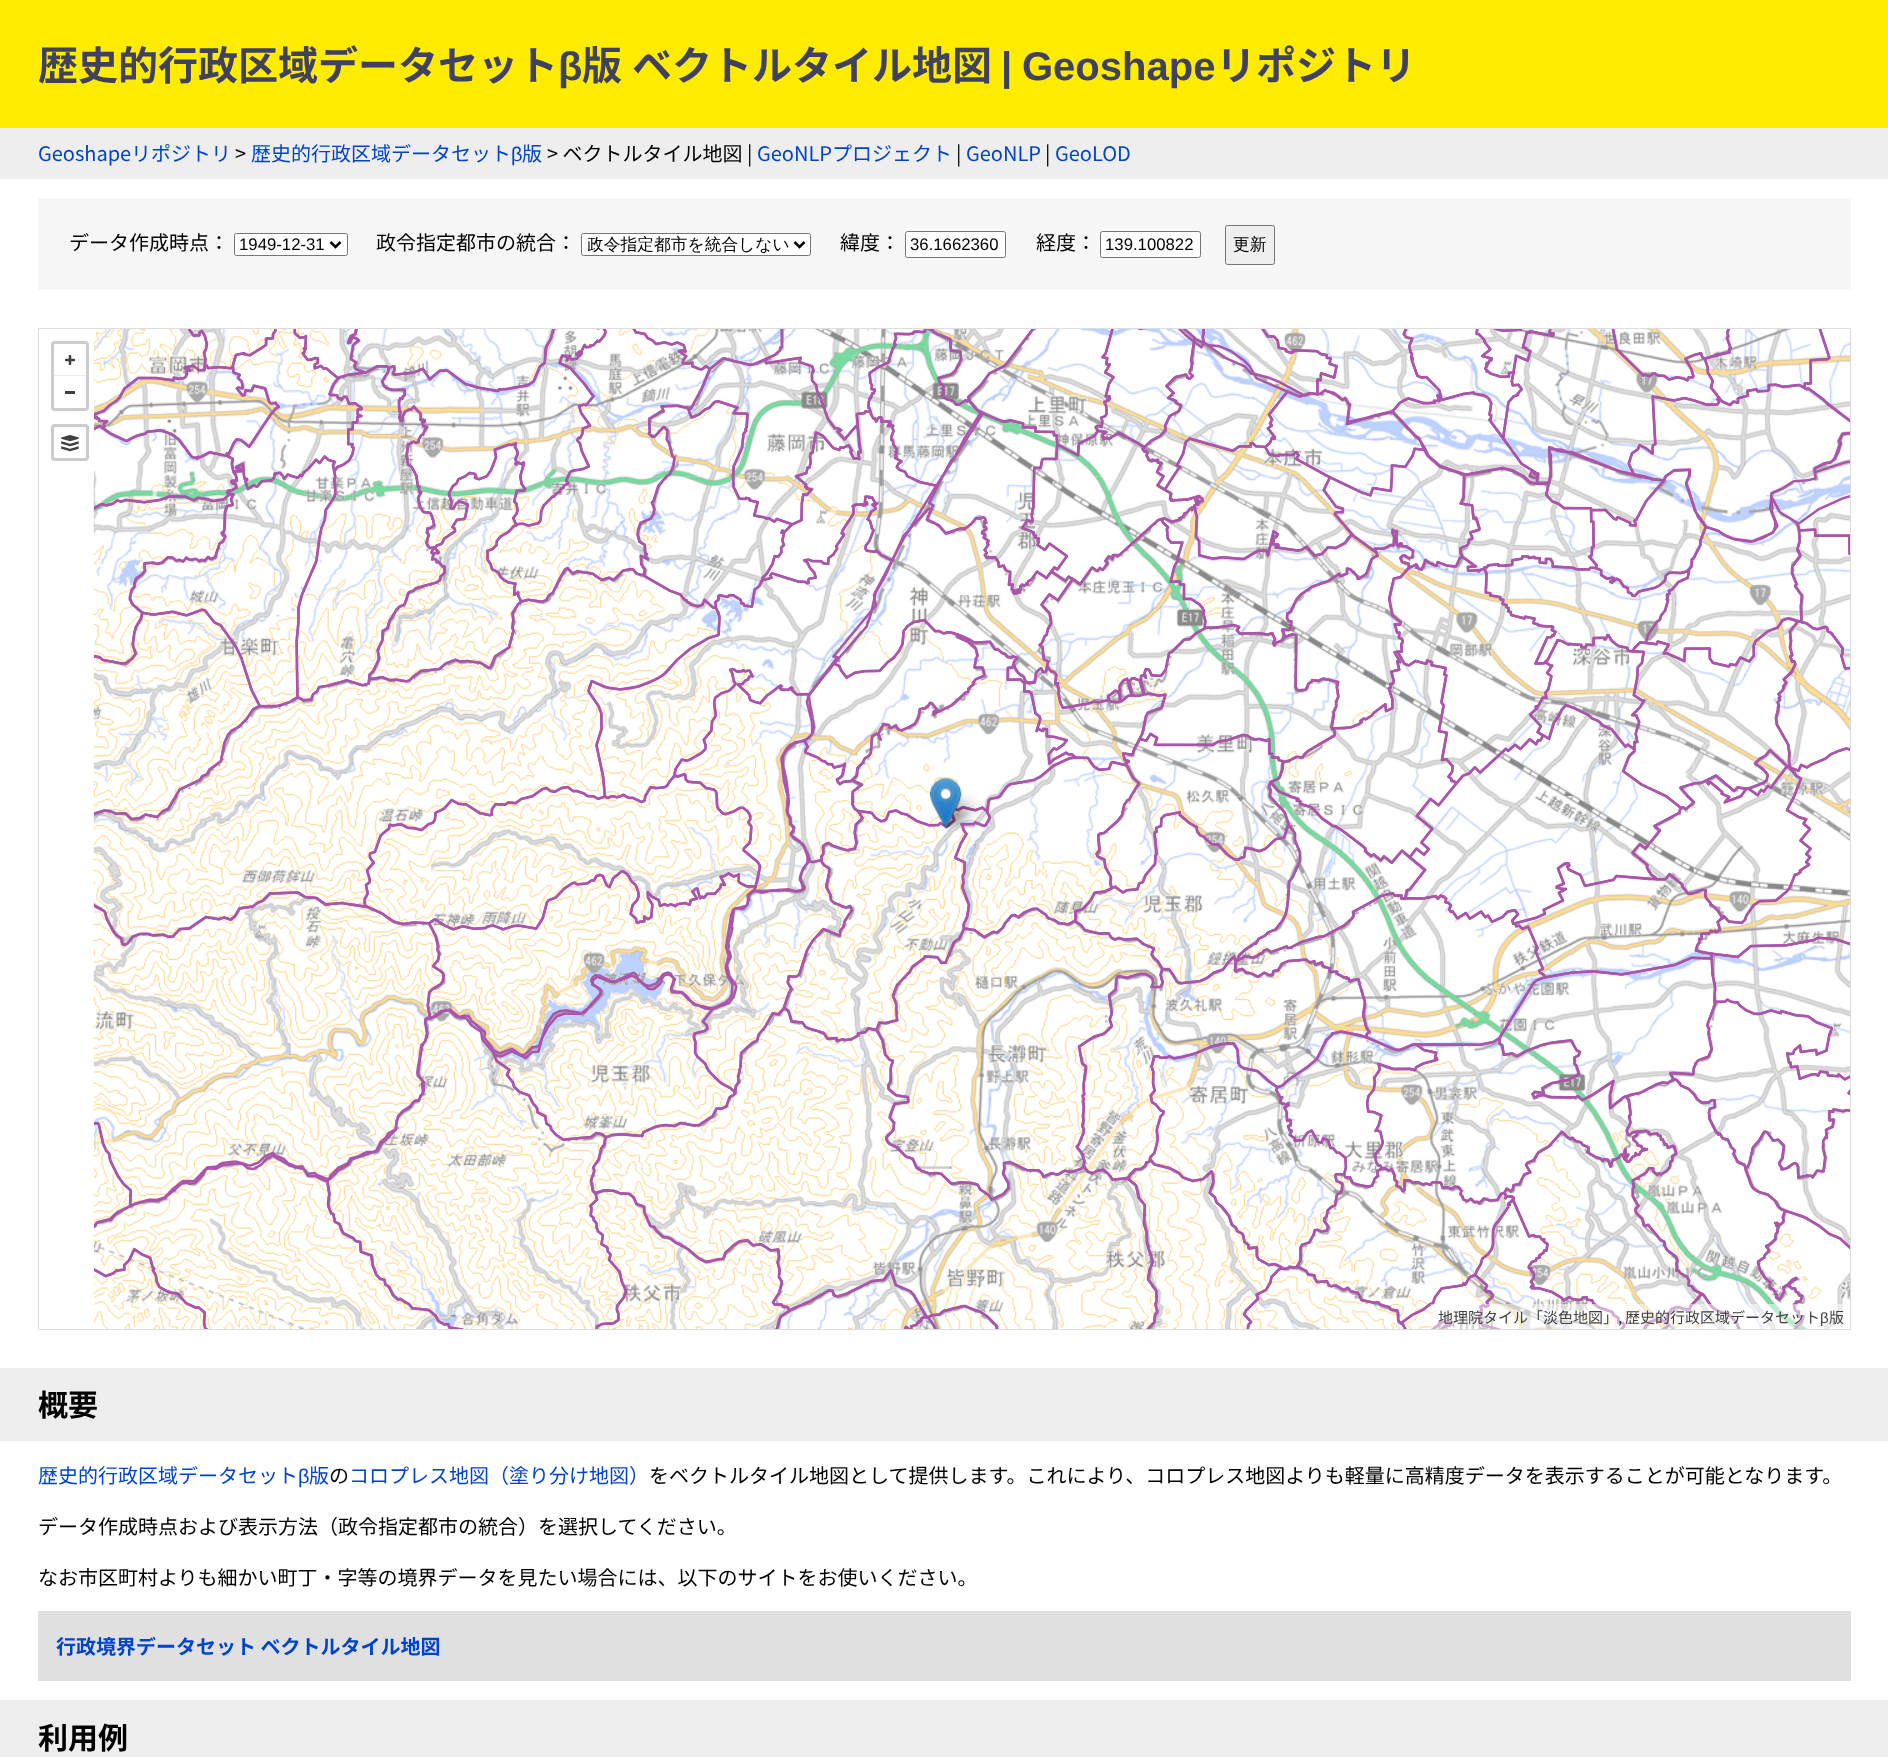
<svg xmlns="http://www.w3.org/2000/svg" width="1888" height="1757">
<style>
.a{font:bold 40px Noto Sans JP;fill:#3f415e}
.b{font:bold 40px Liberation Sans;fill:#3f415e}
.c{font:20px Noto Sans JP;fill:#04c}
.d{font:20px Noto Sans JP;fill:#000}
.e{font:20px Liberation Sans;fill:#04c}
.f{font:16.75px Liberation Sans;fill:#000}
.g{font:500 16.75px WenQuanYi Zen Hei;fill:#000}
.h{font:15px Noto Sans JP;fill:#404040}
.i{font:15px Noto Sans JP;fill:#393239}
.j{font:15px Liberation Sans;fill:#404040}
.k{font:bold 30px Noto Sans JP;fill:#000}
.l{font:bold 20px Noto Sans JP;fill:#04c}
</style>
<defs>
<clipPath id="clip1"><path d="M588 234h202v21H588z"/></clipPath>
</defs>
<rect width="100%" height="100%" fill="#fff"/>
<path fill="#ffec00" d="M0 0h1888v128H0z"/>
<path fill="#eee" d="M0 128h1888v51H0z"/>
<path fill="#f7f7f7" d="M38 198h1813v92H38z"/>
<rect fill="#fff" stroke="#767676" x="234.5" y="233.5" width="113" height="22" rx="2"/>
<path fill="none" stroke="#000" stroke-width="2.5" d="M330.5 242l5 5l5-5"/>
<rect fill="#fff" stroke="#767676" x="581.5" y="233.5" width="229" height="22" rx="2"/>
<path fill="none" stroke="#000" stroke-width="2.5" d="M794.5 242l5 5l5-5"/>
<rect fill="#fff" stroke="#767676" x="905.5" y="231.5" width="100" height="26" rx="2"/>
<rect fill="#fff" stroke="#767676" x="1100.5" y="231.5" width="100" height="26" rx="2"/>
<rect fill="#efefef" stroke="#767676" x="1225.5" y="225.5" width="49" height="39" rx="2"/>
<path fill="none" stroke="#ddd" d="M38.5 328.5h1812v1001H38.5z"/>
<image href="9.png" x="733" y="476" width="321" height="321"/>
<image href="15.png" x="733" y="796" width="321" height="320"/>
<image href="8.png" x="413" y="476" width="321" height="321"/>
<image href="14.png" x="413" y="796" width="321" height="320"/>
<image href="7.png" x="93" y="476" width="321" height="321"/>
<image href="1.png" x="94" y="329" width="320" height="148"/>
<image href="2.png" x="414" y="329" width="320" height="148"/>
<image href="10.png" x="1053" y="476" width="321" height="321"/>
<image href="3.png" x="734" y="329" width="320" height="148"/>
<image href="4.png" x="1054" y="329" width="320" height="148"/>
<image href="16.png" x="1053" y="796" width="321" height="320"/>
<image href="11.png" x="1373" y="476" width="321" height="321"/>
<image href="5.png" x="1374" y="329" width="320" height="148"/>
<image href="12.png" x="1694" y="476" width="156" height="320"/>
<image href="6.png" x="1694" y="329" width="156" height="148"/>
<image href="13.png" x="93" y="796" width="321" height="321"/>
<image href="22.png" x="1054" y="1116" width="320" height="213"/>
<image href="17.png" x="1373" y="796" width="321" height="321"/>
<image href="18.png" x="1694" y="796" width="156" height="320"/>
<image href="19.png" x="94" y="1116" width="320" height="213"/>
<image href="20.png" x="414" y="1116" width="320" height="213"/>
<image href="21.png" x="734" y="1116" width="320" height="213"/>
<image href="23.png" x="1374" y="1116" width="320" height="213"/>
<image href="24.png" x="1694" y="1116" width="156" height="213"/>
<image href="25.png" x="94" y="329" width="320" height="147"/>
<image href="26.png" x="414" y="329" width="320" height="147"/>
<image href="27.png" x="734" y="329" width="320" height="147"/>
<image href="28.png" x="1054" y="329" width="320" height="147"/>
<image href="29.png" x="1374" y="329" width="320" height="147"/>
<image href="30.png" x="1694" y="329" width="156" height="147"/>
<image href="31.png" x="94" y="476" width="320" height="320"/>
<image href="32.png" x="414" y="476" width="320" height="320"/>
<image href="33.png" x="734" y="476" width="320" height="320"/>
<image href="34.png" x="1054" y="476" width="320" height="320"/>
<image href="35.png" x="1374" y="476" width="320" height="320"/>
<image href="36.png" x="1694" y="476" width="156" height="320"/>
<image href="37.png" x="94" y="796" width="320" height="320"/>
<image href="38.png" x="414" y="796" width="320" height="320"/>
<image href="39.png" x="734" y="796" width="320" height="320"/>
<image href="40.png" x="1054" y="796" width="320" height="320"/>
<image href="41.png" x="1374" y="796" width="320" height="320"/>
<image href="42.png" x="1694" y="796" width="156" height="320"/>
<image href="43.png" x="94" y="1116" width="320" height="213"/>
<image href="44.png" x="414" y="1116" width="320" height="213"/>
<image href="45.png" x="734" y="1116" width="320" height="213"/>
<image href="46.png" x="1054" y="1116" width="320" height="213"/>
<image href="47.png" x="1374" y="1116" width="320" height="213"/>
<image href="48.png" x="1694" y="1116" width="156" height="213"/>
<image href="50.png" x="941" y="793" width="38" height="36"/>
<image href="49.png" x="930" y="777" width="32" height="53"/>
<rect fill="none" stroke="#ccc" stroke-width="3" x="52.5" y="342.5" width="35" height="67" rx="2.5"/>
<image href="51.png" x="65" y="355" width="10" height="10"/>
<path fill="#ececec" d="M54 375h32v1H54z"/>
<path fill="#404040" d="M65 391h10v3H65z"/>
<rect fill="none" stroke="#ccc" stroke-width="3" x="52.5" y="425.5" width="35" height="34" rx="2.5"/>
<image href="52.png" x="61" y="435" width="18" height="17"/>
<path fill="#ffffff80" d="M1431 1304h412v25H1431z"/>
<path fill="#eee" d="M0 1368h1888v73H0z"/>
<path fill="#e0e0e0" d="M38 1611h1813v70H38z"/>
<path fill="#eee" d="M0 1700h1888v57H0z"/>
<text class="a" x="38" y="80">歴史的行政区域データセット</text>
<text class="b" x="558" y="80">β</text>
<text class="a" x="582" y="80" word-spacing="1">版 ベクトルタイル地図</text>
<text class="b" x="1001" y="80">|</text>
<text class="b" x="1022" y="80">Geoshape</text>
<text class="a" x="1216" y="80">リポジトリ</text>
<text class="c" x="38" y="161">Geoshapeリポジトリ</text>
<text class="d" x="235" y="161">&gt;</text>
<text class="c" x="251" y="161">歴史的行政区域データセット</text>
<text class="e" x="511" y="161">β</text>
<text class="c" x="522" y="161">版</text>
<text class="d" x="547" y="161">&gt; ベクトルタイル地図 |</text>
<text class="c" x="757" y="161">GeoNLPプロジェクト</text>
<text class="d" x="956" y="161">|</text>
<text class="c" x="966" y="161">GeoNLP</text>
<text class="d" x="1045" y="161">|</text>
<text class="c" x="1055" y="161">GeoLOD</text>
<text class="d" x="69" y="250">データ作成時点：</text>
<text class="f" x="239" y="250">1949-12-31</text>
<text class="d" x="376" y="250">政令指定都市の統合：</text>
<g clip-path="url(#clip1)">
<text class="g" x="587" y="250">政令指定都市を統合しない</text>
</g>
<text class="d" x="840" y="250">緯度：</text>
<text class="f" x="910" y="250">36.1662360</text>
<text class="d" x="1036" y="250">経度：</text>
<text class="f" x="1105" y="250">139.100822</text>
<text class="g" x="1233" y="250">更新</text>
<text class="h" x="1438" y="1323">地理院タイル「淡色地図」</text>
<text class="i" x="1618" y="1323">,</text>
<text class="h" x="1625" y="1323">歴史的行政区域データセット</text>
<text class="j" x="1820" y="1323">β</text>
<text class="h" x="1829" y="1323">版</text>
<text class="k" x="38" y="1416">概要</text>
<text class="c" x="38" y="1483">歴史的行政区域データセット</text>
<text class="e" x="298" y="1483">β</text>
<text class="c" x="309" y="1483">版</text>
<text class="d" x="329" y="1483">の</text>
<text class="c" x="349" y="1483">コロプレス地図（塗り分け地図）</text>
<text class="d" x="649" y="1483">をベクトルタイル地図として提供します。これにより、コロプレス地図よりも軽量に高精度データを表示することが可能となります。</text>
<text class="d" x="38" y="1534">データ作成時点および表示方法（政令指定都市の統合）を選択してください。</text>
<text class="d" x="38" y="1585">なお市区町村よりも細かい町丁・字等の境界データを見たい場合には、以下のサイトをお使いください。</text>
<text class="l" x="56" y="1654">行政境界データセット ベクトルタイル地図</text>
<text class="k" x="38" y="1749">利用例</text>
</svg>
